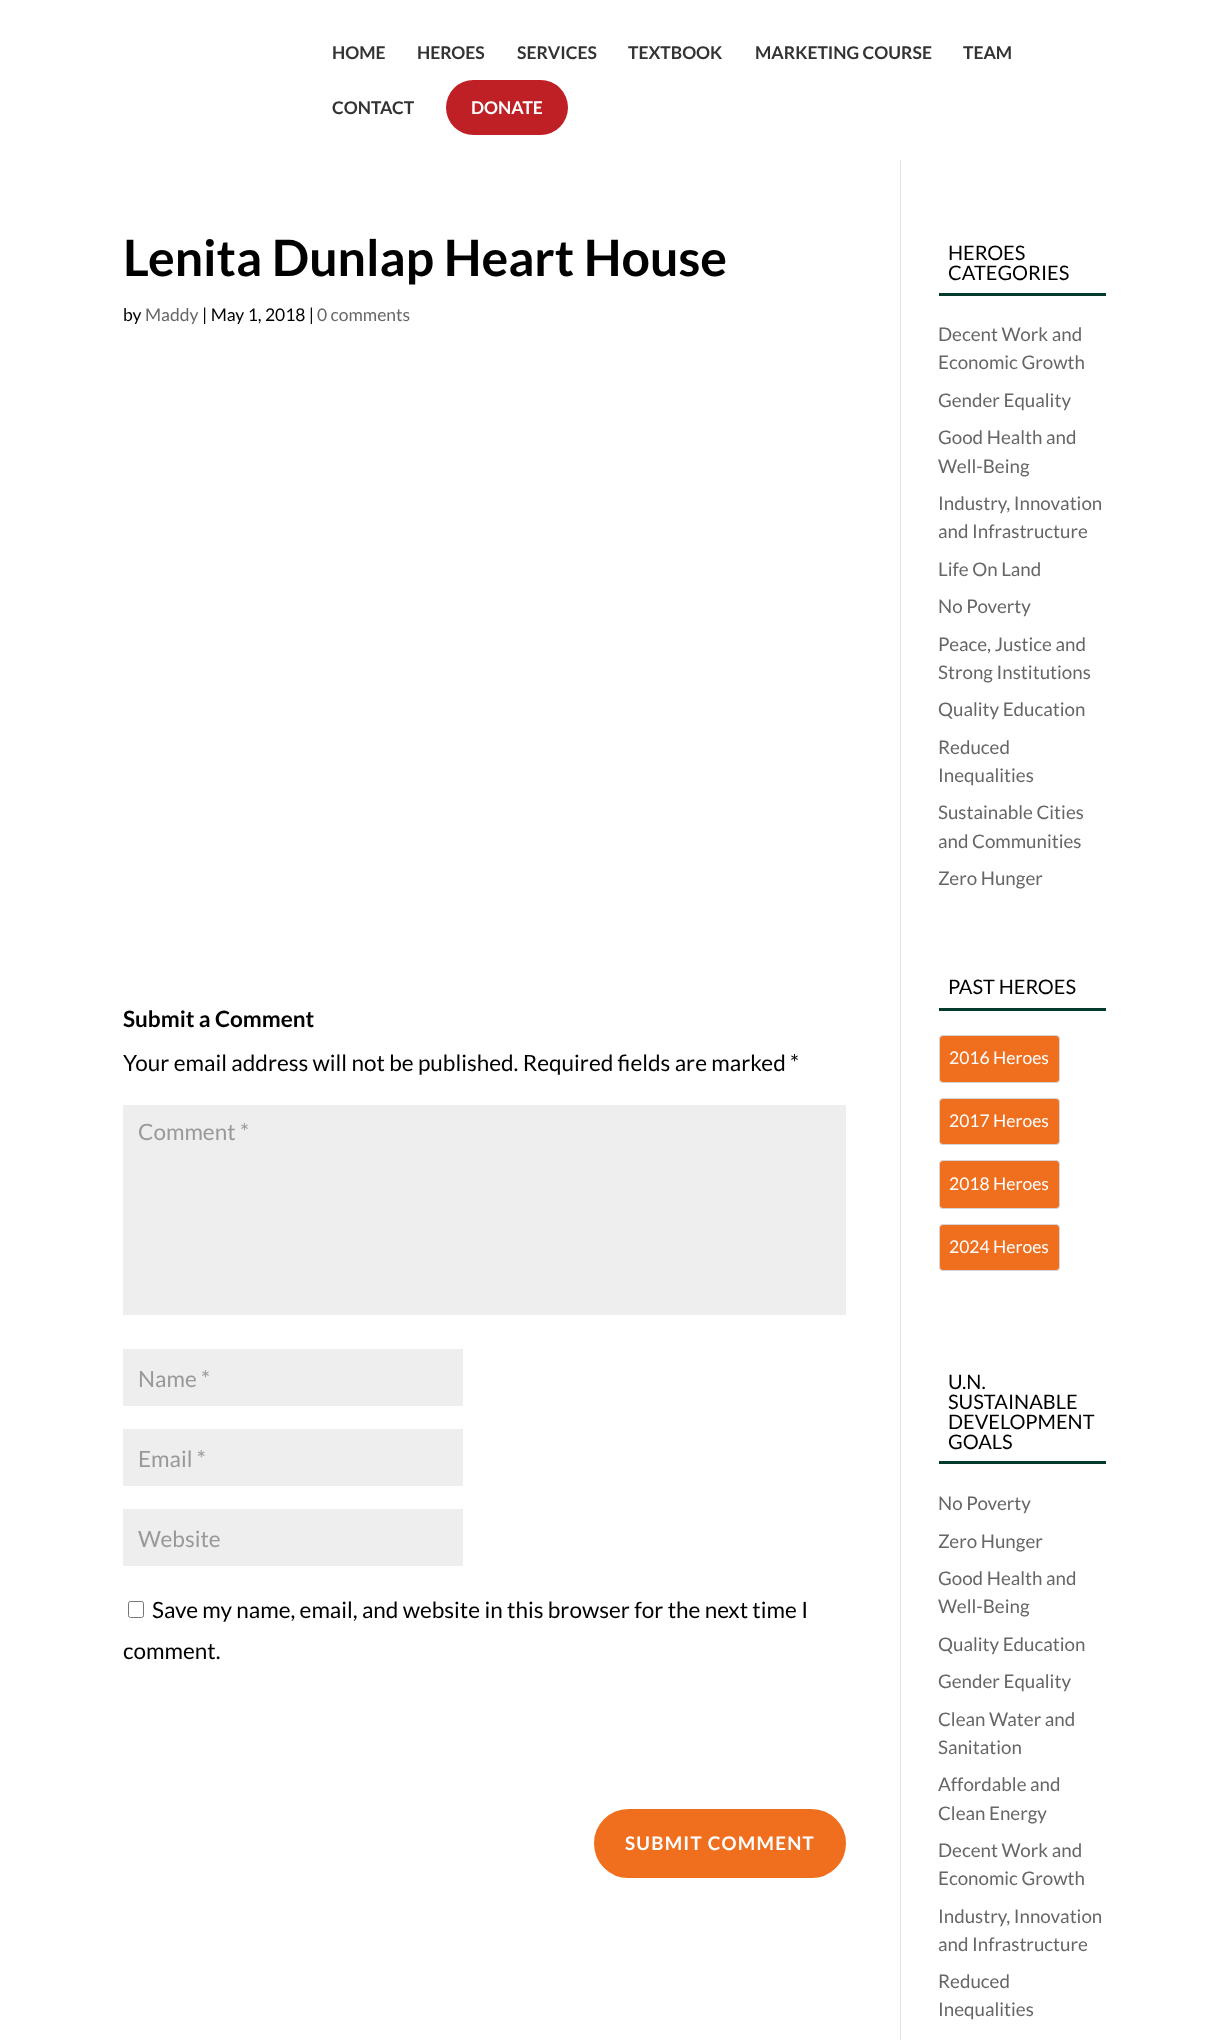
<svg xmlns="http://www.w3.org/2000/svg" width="1228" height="2040">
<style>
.a{font:bold 17.5px Lato;fill:#333}
.b{font:bold 17.5px Lato;fill:#fff}
.c{font:bold 50px Lato;fill:#000}
.d{font:17.5px Lato;fill:#000}
.e{font:17.5px Lato;fill:#666}
.f{font:bold 22.5px Lato;fill:#000}
.g{font:22.5px Lato;fill:#000}
.h{font:22.5px Lato;fill:#999}
.i{font:bold 18.75px Lato;letter-spacing:1.25px;fill:#fff}
.j{font:20px Lato;fill:#000}
.k{font:18.75px Lato;fill:#666}
.l{font:17.5px Lato;fill:#fff}
</style>
<rect width="100%" height="100%" fill="#fff"/>
<rect fill="#be2026" x="446" y="80" width="122" height="55" rx="27.5"/>
<path fill="#e2e2e2" d="M900 160h1v1880H900z"/>
<path fill="#eee" d="M123 1105h723v210H123z"/>
<path fill="#eee" d="M123 1349h340v57H123z"/>
<path fill="#eee" d="M123 1429h340v57H123z"/>
<path fill="#eee" d="M123 1509h340v57H123z"/>
<rect fill="none" stroke="#767676" x="128.5" y="1601.5" width="15" height="16" rx="2"/>
<rect fill="#ef6f1e" stroke="#ef6f1e" stroke-width="13" x="600.5" y="1815.5" width="239" height="56" rx="28"/>
<path fill="#003b2b" d="M939 293h167v3H939z"/>
<path fill="#003b2b" d="M939 1008h167v3H939z"/>
<rect fill="#ef6f1e" stroke="#d6d6d6" x="939.5" y="1035.5" width="120" height="47" rx="3.5"/>
<rect fill="#ef6f1e" stroke="#d6d6d6" x="939.5" y="1098.5" width="120" height="46" rx="3.5"/>
<rect fill="#ef6f1e" stroke="#d6d6d6" x="939.5" y="1160.5" width="120" height="48" rx="3.5"/>
<rect fill="#ef6f1e" stroke="#d6d6d6" x="939.5" y="1224.5" width="120" height="46" rx="3.5"/>
<path fill="#003b2b" d="M939 1461h167v3H939z"/>
<text class="a" x="332" y="59">HOME</text>
<text class="a" x="417" y="59">HEROES</text>
<text class="a" x="517" y="59">SERVICES</text>
<text class="a" x="628" y="59">TEXTBOOK</text>
<text class="a" x="755" y="59">MARKETING COURSE</text>
<text class="a" x="963" y="59">TEAM</text>
<text class="a" x="332" y="114">CONTACT</text>
<text class="b" x="471" y="114">DONATE</text>
<text class="c" x="123" y="276">Lenita Dunlap Heart House</text>
<text class="d" x="123" y="321">by</text>
<text class="e" x="145" y="321">Maddy</text>
<text class="d" x="202" y="321">| May 1, 2018 |</text>
<text class="e" x="317" y="321">0 comments</text>
<text class="f" x="123" y="1027">Submit a Comment</text>
<text class="g" x="123" y="1071">Your email address will not be published. Required fields are marked *</text>
<text class="h" x="138" y="1140">Comment *</text>
<text class="h" x="138" y="1387">Name *</text>
<text class="h" x="138" y="1467">Email *</text>
<text class="h" x="138" y="1547">Website</text>
<text class="g" x="152" y="1618">Save my name, email, and website in this browser for the next time I</text>
<text class="g" x="123" y="1659">comment.</text>
<text class="i" x="625" y="1850">SUBMIT COMMENT</text>
<text class="j" x="948" y="260">HEROES</text>
<text class="j" x="948" y="280">CATEGORIES</text>
<text class="k" x="938" y="341">Decent Work and</text>
<text class="k" x="938" y="369">Economic Growth</text>
<text class="k" x="938" y="407">Gender Equality</text>
<text class="k" x="938" y="444">Good Health and</text>
<text class="k" x="938" y="473">Well-Being</text>
<text class="k" x="938" y="510">Industry, Innovation</text>
<text class="k" x="938" y="538">and Infrastructure</text>
<text class="k" x="938" y="576">Life On Land</text>
<text class="k" x="938" y="613">No Poverty</text>
<text class="k" x="938" y="651">Peace, Justice and</text>
<text class="k" x="938" y="679">Strong Institutions</text>
<text class="k" x="938" y="716">Quality Education</text>
<text class="k" x="938" y="754">Reduced</text>
<text class="k" x="938" y="782">Inequalities</text>
<text class="k" x="938" y="819">Sustainable Cities</text>
<text class="k" x="938" y="848">and Communities</text>
<text class="k" x="938" y="885">Zero Hunger</text>
<text class="j" x="948" y="994">PAST HEROES</text>
<text class="l" x="949" y="1064">2016 Heroes</text>
<text class="l" x="949" y="1127">2017 Heroes</text>
<text class="l" x="949" y="1190">2018 Heroes</text>
<text class="l" x="949" y="1253">2024 Heroes</text>
<text class="j" x="948" y="1389">U.N.</text>
<text class="j" x="948" y="1409">SUSTAINABLE</text>
<text class="j" x="948" y="1429">DEVELOPMENT</text>
<text class="j" x="948" y="1449">GOALS</text>
<text class="k" x="938" y="1510">No Poverty</text>
<text class="k" x="938" y="1548">Zero Hunger</text>
<text class="k" x="938" y="1585">Good Health and</text>
<text class="k" x="938" y="1613">Well-Being</text>
<text class="k" x="938" y="1651">Quality Education</text>
<text class="k" x="938" y="1688">Gender Equality</text>
<text class="k" x="938" y="1726">Clean Water and</text>
<text class="k" x="938" y="1754">Sanitation</text>
<text class="k" x="938" y="1791">Affordable and</text>
<text class="k" x="938" y="1820">Clean Energy</text>
<text class="k" x="938" y="1857">Decent Work and</text>
<text class="k" x="938" y="1885">Economic Growth</text>
<text class="k" x="938" y="1923">Industry, Innovation</text>
<text class="k" x="938" y="1951">and Infrastructure</text>
<text class="k" x="938" y="1988">Reduced</text>
<text class="k" x="938" y="2016">Inequalities</text>
</svg>
